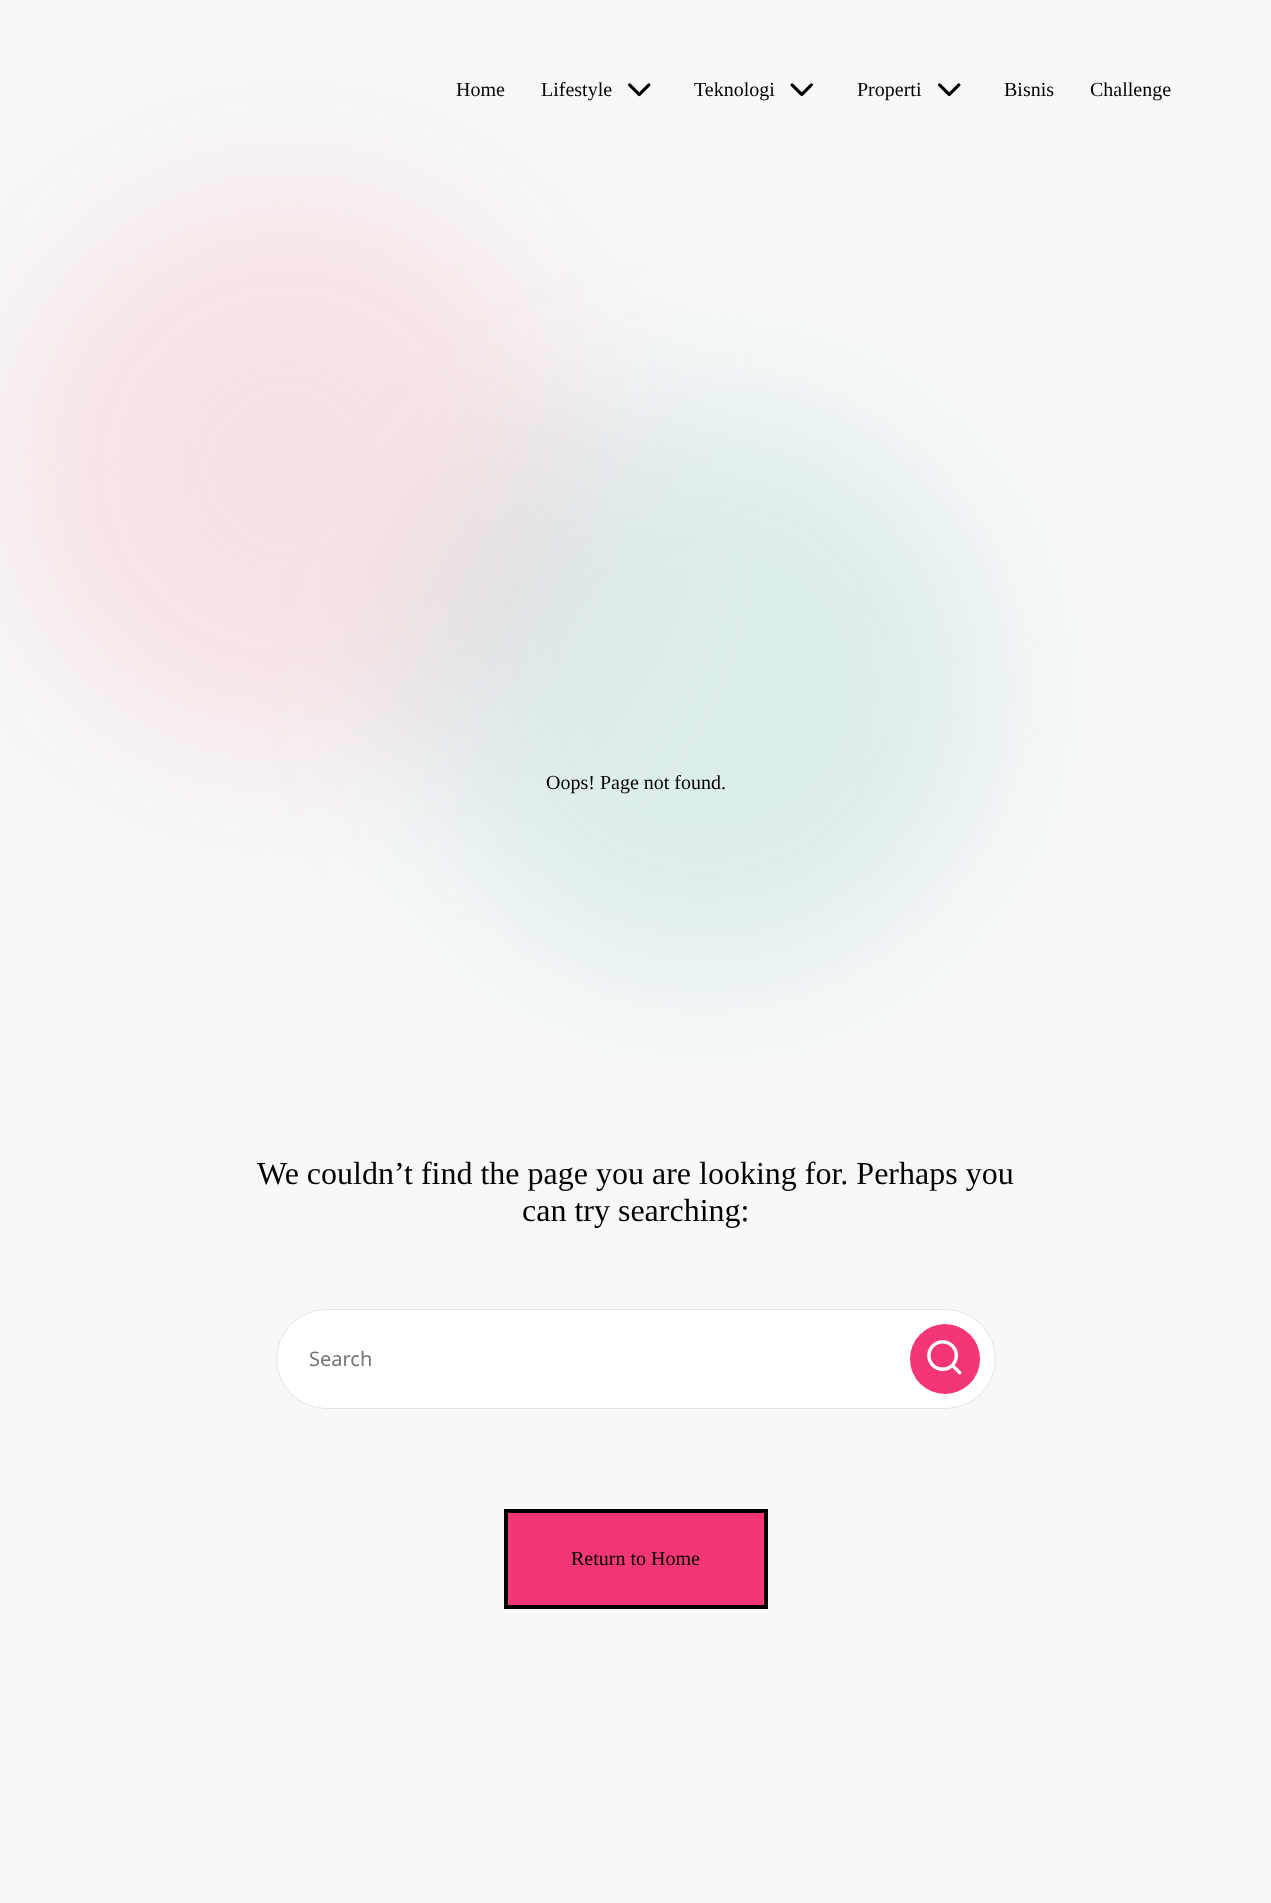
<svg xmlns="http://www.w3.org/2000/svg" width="1271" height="1903">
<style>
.a{font:20px Liberation Serif;fill:#000}
.b{font:32px Liberation Serif;fill:#000}
.c{font:20px Noto Sans;fill:#757575}
</style>
<defs>
<clipPath id="clip1"><path d="M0 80h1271v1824H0z"/></clipPath>
</defs>
<rect width="100%" height="100%" fill="#f7f8f9"/>
<g clip-path="url(#clip1)">
<rect fill="#f7e3e5" filter="blur(80px)" y="180" width="576" height="576" rx="288"/>
</g>
<image href="1.png" x="628" y="83" width="23" height="14"/>
<image href="2.png" x="790" y="83" width="23" height="14"/>
<image href="3.png" x="938" y="83" width="23" height="14"/>
<rect fill="#04868b1a" filter="blur(80px)" x="416" y="400" width="577" height="576" rx="288"/>
<rect fill="#fff" x="276" y="1309" width="720" height="100" rx="50"/>
<rect fill="none" stroke="#b9b9b966" x="276.5" y="1309.5" width="719" height="99" rx="49.5"/>
<circle fill="#f43676" cx="945" cy="1359" r="35"/>
<image href="4.png" x="927" y="1340" width="35" height="35"/>
<path fill="#f43676" stroke="#000" stroke-width="4" d="M506 1511h260v96H506z"/>
<text class="a" x="456" y="96">Home</text>
<text class="a" x="541" y="96">Lifestyle</text>
<text class="a" x="694" y="96">Teknologi</text>
<text class="a" x="857" y="96">Properti</text>
<text class="a" x="1004" y="96">Bisnis</text>
<text class="a" x="1090" y="96">Challenge</text>
<text class="a" x="546" y="789">Oops! Page not found.</text>
<text class="b" x="257" y="1184">We couldn’t find the page you are looking for. Perhaps you</text>
<text class="b" x="522" y="1221">can try searching:</text>
<text class="c" x="309" y="1366">Search</text>
<text class="a" x="571" y="1565">Return to Home</text>
</svg>
